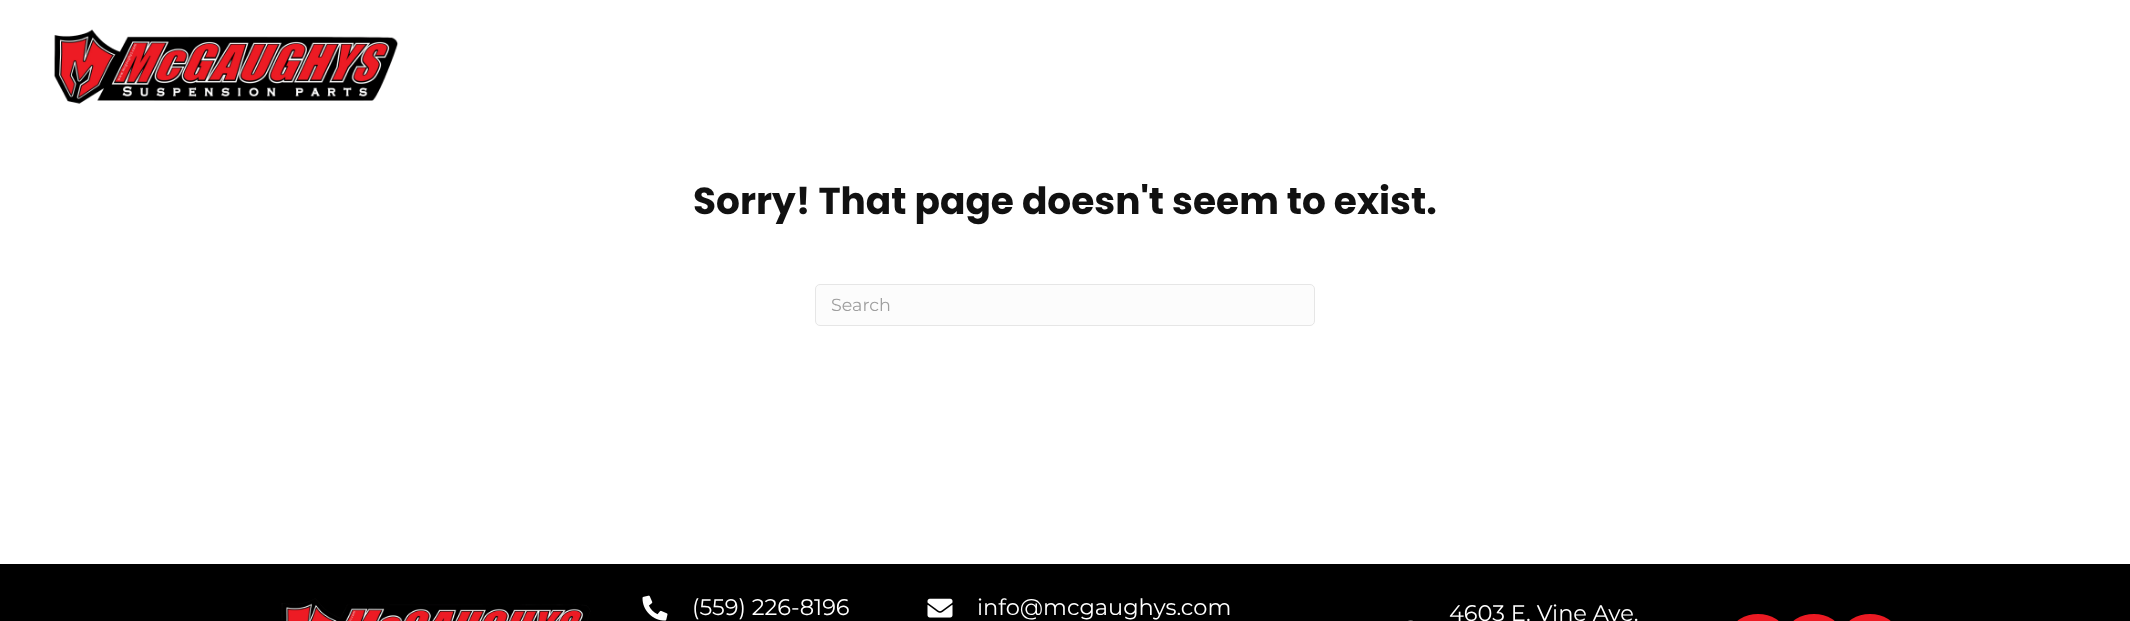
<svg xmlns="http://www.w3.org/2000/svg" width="2130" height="621">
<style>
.a{font:bold 37.5px Poppins;fill:#111}
.b{font:17.5px Montserrat;fill:#9e9e9e}
.c{font:22.5px Montserrat;fill:#fff}
</style>
<rect width="100%" height="100%" fill="#fff"/>
<image href="1.png" x="53" y="29" width="346" height="75"/>
<rect fill="#fcfcfc" stroke="#e6e6e6" x="815.5" y="284.5" width="499" height="41" rx="4.5"/>
<path fill="#000" d="M0 564h2130v57H0z"/>
<image href="2.png" x="281" y="598" width="310" height="23"/>
<image href="3.png" x="642" y="595" width="26" height="26"/>
<image href="4.png" x="927" y="598" width="26" height="20"/>
<image href="5.png" x="1408" y="620" width="5" height="1"/>
<rect fill="#ec1a23" x="1733" y="614" width="50" height="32" rx="25"/>
<rect fill="#ec1a23" x="1789" y="614" width="50" height="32" rx="25"/>
<rect fill="#ec1a23" x="1845" y="614" width="50" height="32" rx="25"/>
<text class="a" x="693" y="214">Sorry! That page doesn't seem to exist.</text>
<text class="b" x="831" y="311">Search</text>
<text class="c" x="692" y="615">(559) 226-8196</text>
<text class="c" x="977" y="615">info@mcgaughys.com</text>
<text class="c" x="1449" y="621">4603 E. Vine Ave.</text>
</svg>
